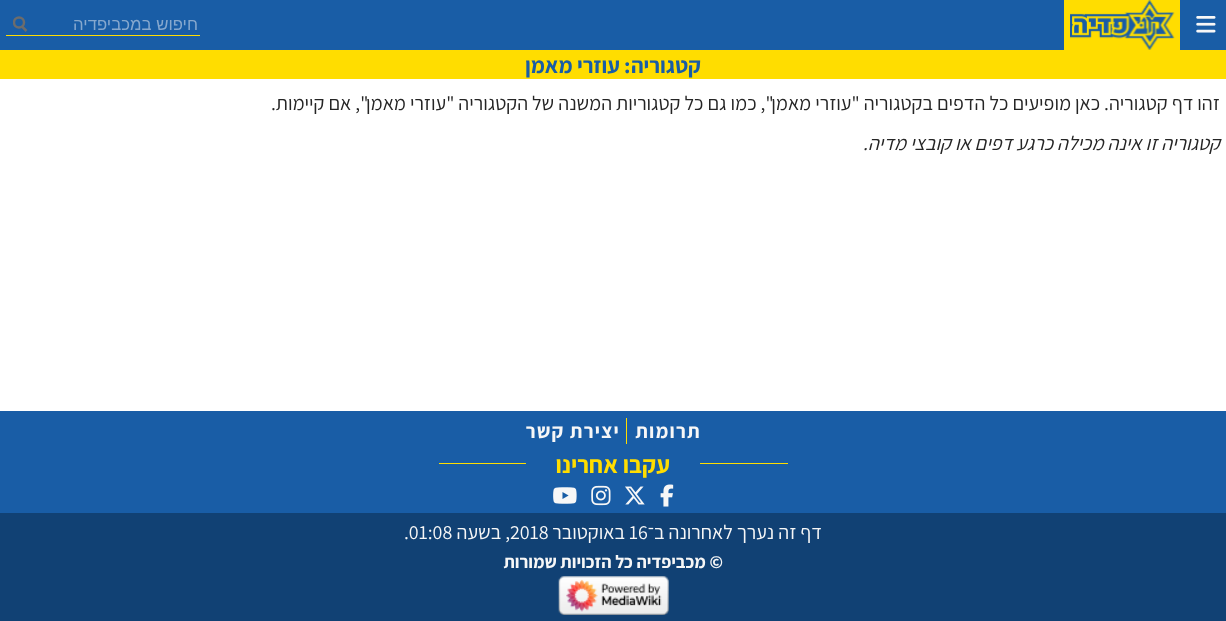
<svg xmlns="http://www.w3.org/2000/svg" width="1226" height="621">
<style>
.a{font:16.75px Liberation Sans;direction:rtl;fill:#86a8ce}
.b{font:bold 22px Assistant;direction:rtl;fill:#195da6}
.c{font:bold 22px Assistant;fill:#195da6}
.d{font:20px Assistant;direction:rtl;fill:#252525}
.e{font:italic 20px Assistant;direction:rtl;fill:#252525}
.f{font:bold 20px Assistant;letter-spacing:1.25px;direction:rtl;fill:#f7f7f7}
.g{font:bold 24px Assistant;direction:rtl;fill:#fd0}
.h{font:20px Assistant;direction:rtl;fill:#f7f7f7}
.i{font:20px Assistant;fill:#f7f7f7}
.j{font:bold 18px Assistant;direction:rtl;fill:#f7f7f7}
</style>
<defs>
<clipPath id="clip1"><path d="M13 16h15v17H13z"/></clipPath>
</defs>
<rect width="100%" height="100%" fill="#fff"/>
<path fill="#195da6" d="M0 0h1226v50H0z"/>
<image href="1.png" x="1196" y="16" width="20" height="17"/>
<path fill="#fd0" d="M1064 0h116v50H1064z"/>
<image href="2.png" x="1070" y="0" width="105" height="50"/>
<path fill="#fd0" d="M6 35h194v1H6z"/>
<path fill="none" stroke="#6c6c6c" stroke-width="2.5" d="M26.5 31l-5-5"/>
<g clip-path="url(#clip1)">
<circle fill="none" stroke="#6c6c6c" stroke-width="2.5" cx="19" cy="22.5" r="5"/>
</g>
<path fill="#fd0" d="M0 50h1226v29H0z"/>
<path fill="#195da6" d="M0 411h1226v102H0z"/>
<path fill="#fd0" d="M626 418h1v26H626z"/>
<path fill="#fd0" d="M439 463h349v1H439z"/>
<path fill="#195da6" d="M526 463h174v1H526z"/>
<image href="3.png" x="660" y="484" width="14" height="23"/>
<image href="4.png" x="625" y="486" width="20" height="19"/>
<image href="5.png" x="591" y="485" width="20" height="21"/>
<image href="6.png" x="553" y="487" width="24" height="17"/>
<path fill="#114174" d="M0 513h1226v108H0z"/>
<image href="7.png" x="558" y="576" width="111" height="39"/>
<text class="a" x="198" y="30">חיפוש במכביפדיה</text>
<text class="b" x="701" y="73">קטגוריה</text>
<text class="c" x="624" y="73">:</text>
<text class="b" x="620" y="73">עוזרי מאמן</text>
<text class="d" x="1220" y="110">זהו דף קטגוריה. כאן מופיעים כל הדפים בקטגוריה "עוזרי מאמן", כמו גם כל קטגוריות המשנה של הקטגוריה "עוזרי מאמן", אם קיימות.</text>
<text class="e" x="1220" y="150">קטגוריה זו אינה מכילה כרגע דפים או קובצי מדיה.</text>
<text class="f" x="701" y="438">תרומות</text>
<text class="f" x="620" y="438">יצירת קשר</text>
<text class="g" x="670" y="473">עקבו אחרינו</text>
<text class="h" x="822" y="539">דף זה נערך לאחרונה ב־</text>
<text class="i" x="629" y="539">16</text>
<text class="h" x="625" y="539">באוקטובר</text>
<text class="i" x="510" y="539">2018</text>
<text class="h" x="510" y="539">, בשעה</text>
<text class="i" x="404" y="539">.01:08</text>
<text class="j" x="723" y="568">© מכביפדיה כל הזכויות שמורות</text>
</svg>
